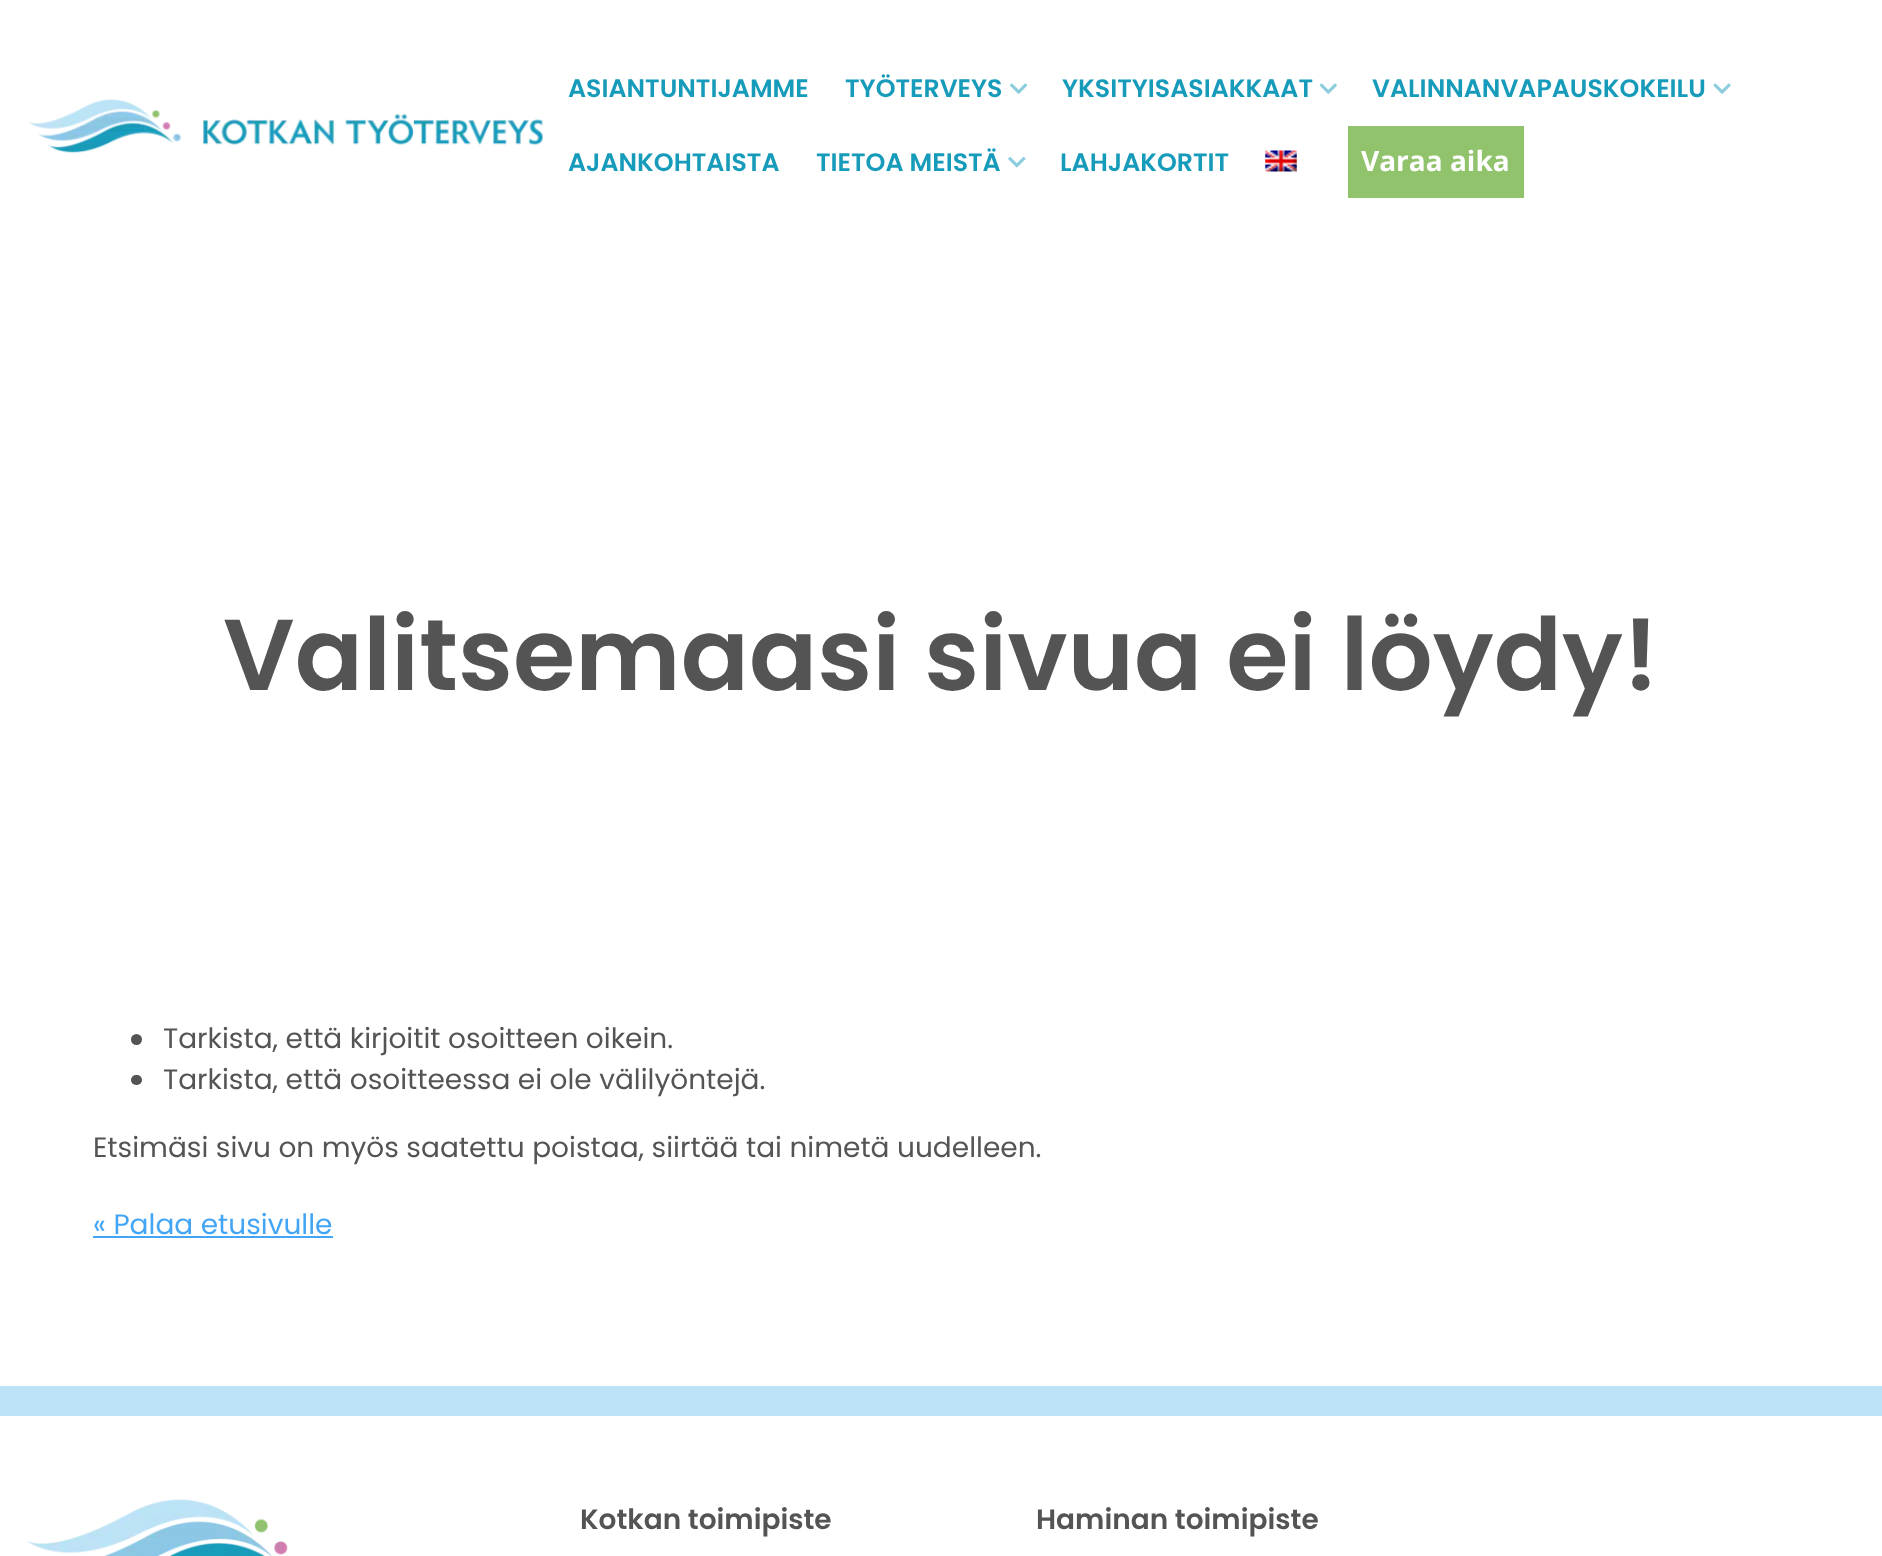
<svg xmlns="http://www.w3.org/2000/svg" width="1882" height="1556">
<style>
.a{font:600 25.25px Poppins;fill:#179bba}
.b{font:bold 28px Open Sans;fill:#fff}
.c{font:600 100.75px Poppins;fill:#545454}
.d{font:28px Poppins;fill:#545454}
.e{font:28px Poppins;fill:#42a5f5}
.f{font:600 28px Poppins;fill:#545454}
</style>
<rect width="100%" height="100%" fill="#fff"/>
<image href="1.png" x="28" y="99" width="515" height="54"/>
<image href="2.png" x="1010" y="83" width="18" height="11"/>
<image href="3.png" x="1319" y="83" width="18" height="11"/>
<image href="4.png" x="1713" y="83" width="18" height="11"/>
<image href="5.png" x="1008" y="157" width="18" height="11"/>
<image href="6.png" x="1265" y="150" width="32" height="22"/>
<path fill="#91c36d" d="M1348 126h176v72H1348z"/>
<circle fill="#545454" cx="136.5" cy="1039.5" r="5.5"/>
<rect fill="#545454" x="131" y="1075" width="11" height="10" rx="5"/>
<path fill="#42a5f5" d="M93 1236h240v2H93z"/>
<path fill="#bce3f7" d="M0 1386h1882v30H0z"/>
<image href="7.png" x="27" y="1499" width="261" height="57"/>
<text class="a" x="568" y="97">ASIANTUNTIJAMME</text>
<text class="a" x="845" y="97">TYÖTERVEYS</text>
<text class="a" x="1062" y="97">YKSITYISASIAKKAAT</text>
<text class="a" x="1372" y="97">VALINNANVAPAUSKOKEILU</text>
<text class="a" x="568" y="171">AJANKOHTAISTA</text>
<text class="a" x="816" y="171">TIETOA MEISTÄ</text>
<text class="a" x="1060" y="171">LAHJAKORTIT</text>
<text class="b" x="1361" y="171">Varaa aika</text>
<text class="c" x="223" y="690">Valitsemaasi sivua ei löydy!</text>
<text class="d" x="163" y="1048">Tarkista, että kirjoitit osoitteen oikein.</text>
<text class="d" x="163" y="1089">Tarkista, että osoitteessa ei ole välilyöntejä.</text>
<text class="d" x="93" y="1157">Etsimäsi sivu on myös saatettu poistaa, siirtää tai nimetä uudelleen.</text>
<text class="e" x="93" y="1234">« Palaa etusivulle</text>
<text class="f" x="580" y="1529">Kotkan toimipiste</text>
<text class="f" x="1036" y="1529">Haminan toimipiste</text>
</svg>
